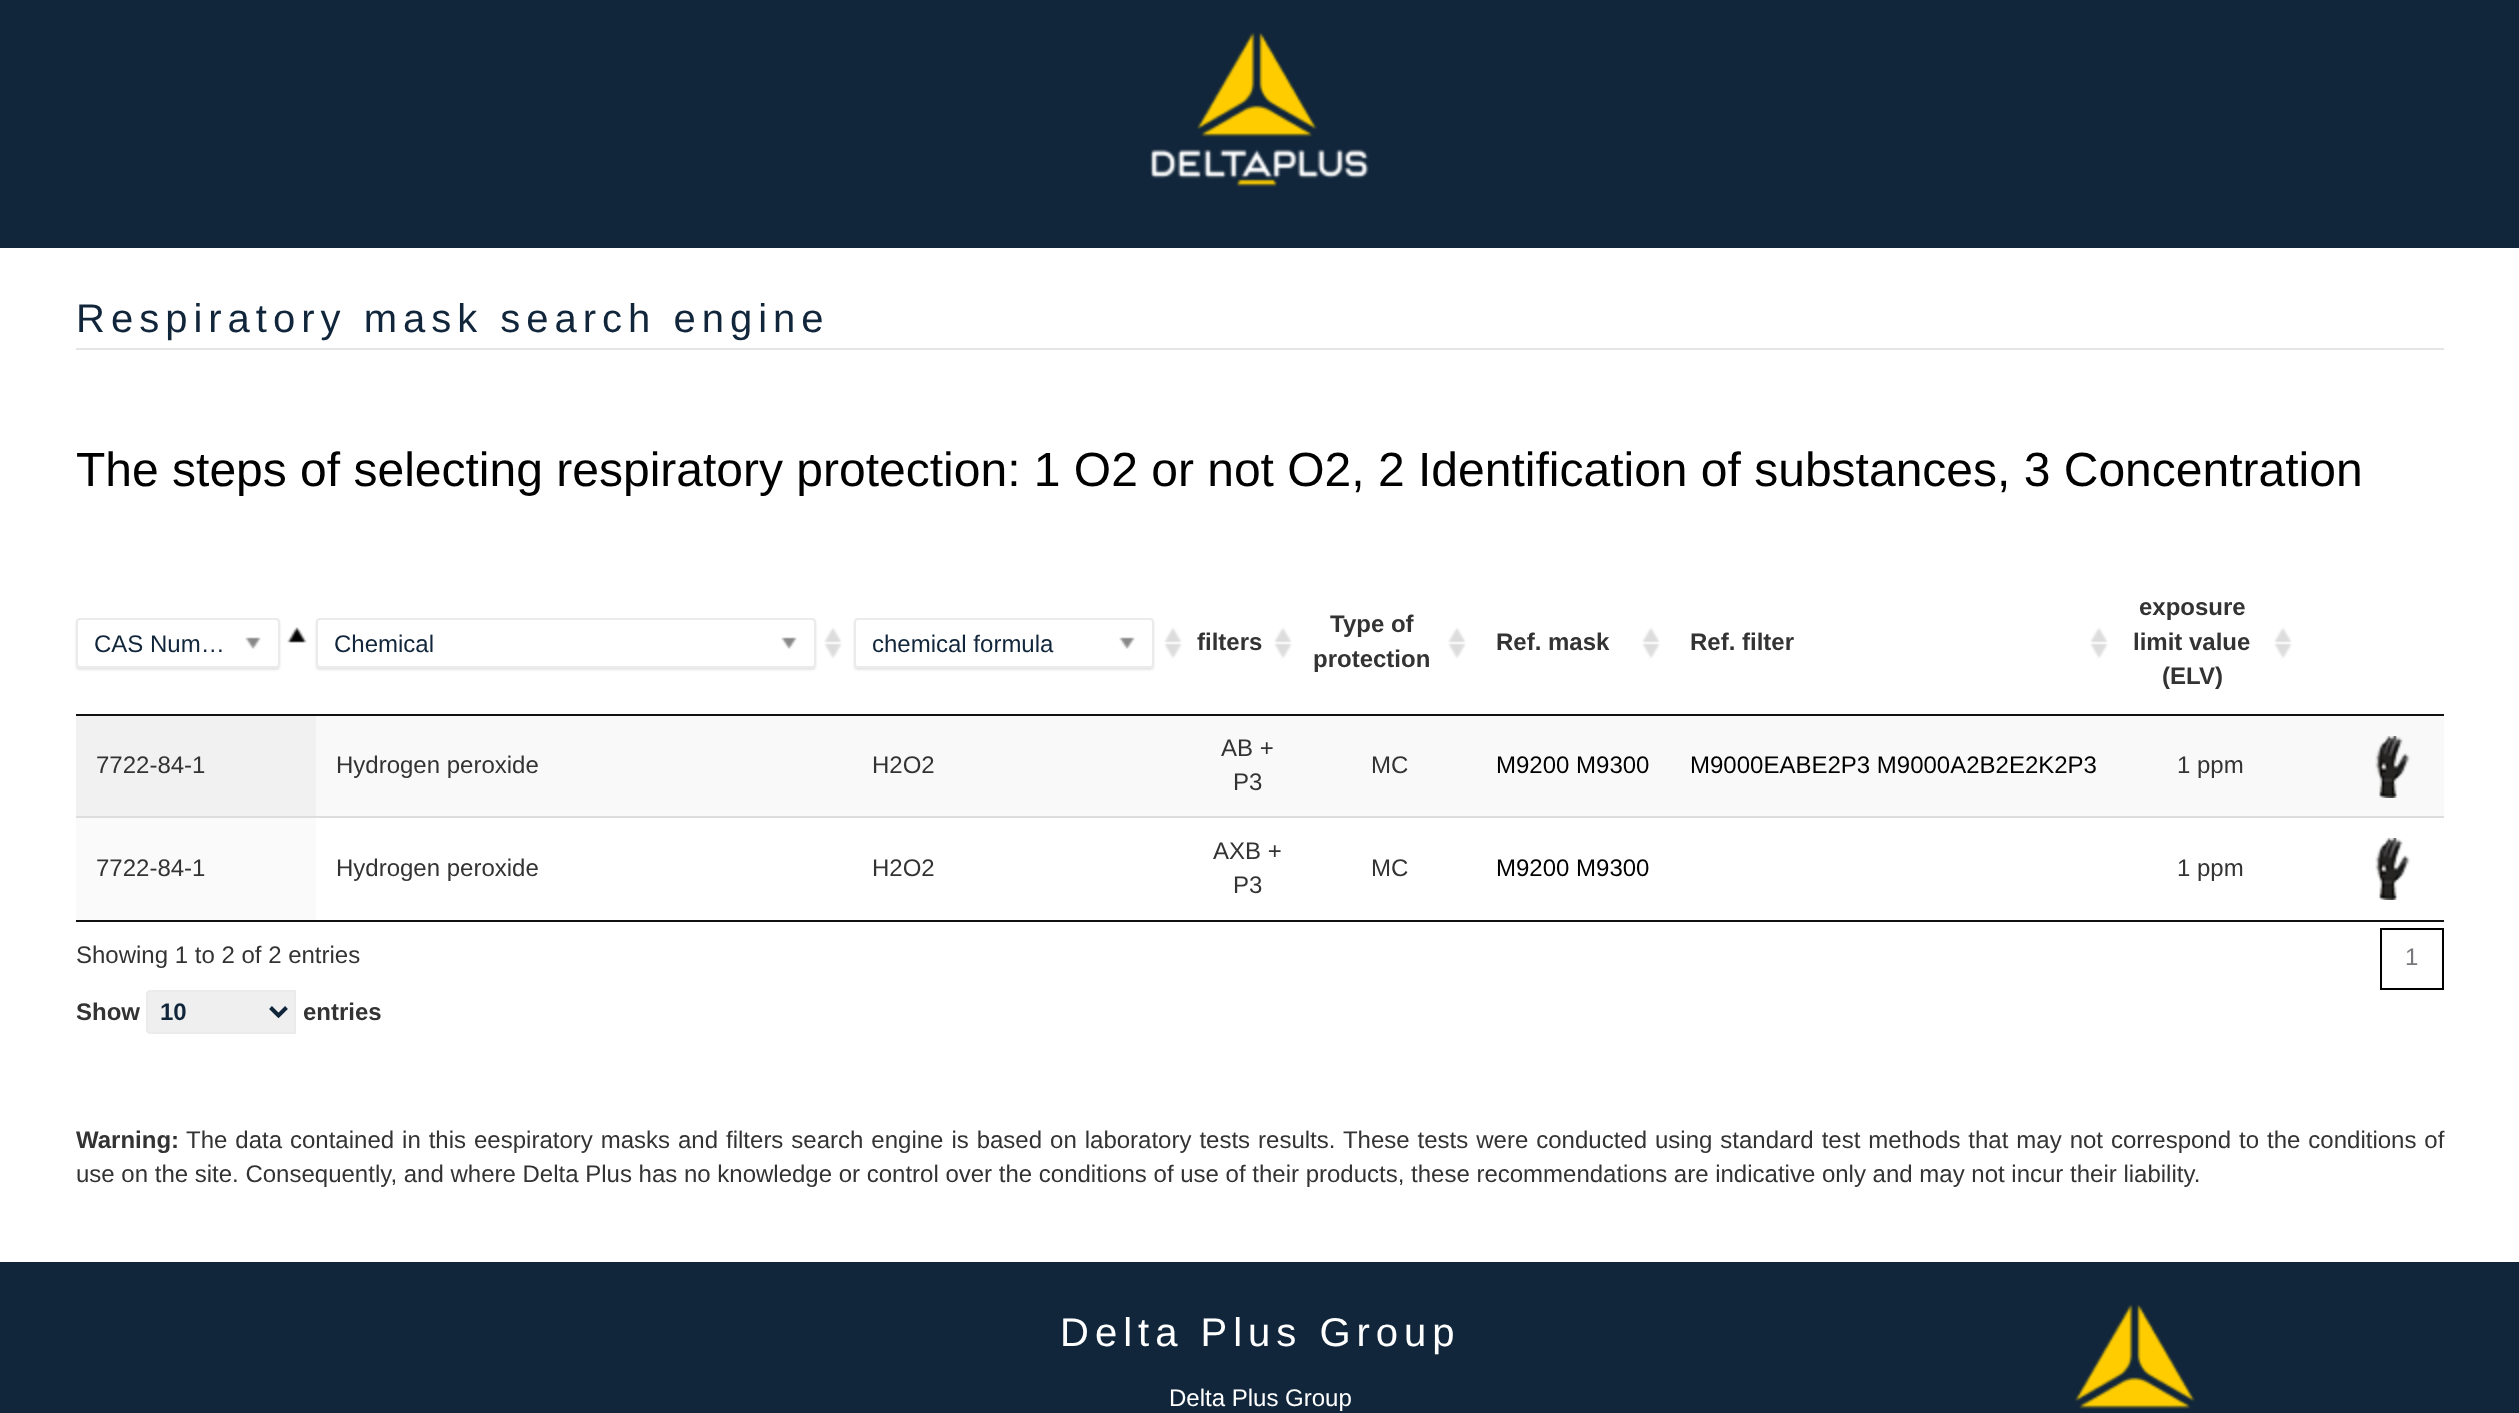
<svg xmlns="http://www.w3.org/2000/svg" width="2519" height="1413">
<style>
.a{font:40px Liberation Sans;letter-spacing:6px;fill:#11263b}
.b{font:48px Liberation Sans;fill:#000}
.c{font:24px Liberation Sans;fill:#11263b}
.d{font:bold 24px Liberation Sans;fill:#333}
.e{font:24px Liberation Sans;fill:#333}
.f{font:24px Liberation Sans;fill:#000}
.g{font:24px Liberation Sans;fill:#77787b}
.h{font:bold 24px Liberation Sans;fill:#11263b}
.i{font:40px Liberation Sans;letter-spacing:6px;fill:#fff}
.j{font:24px Liberation Sans;fill:#fff}
</style>
<defs>
<clipPath id="clip1"><path d="M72 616h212v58h-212zm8 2h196c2 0 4 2 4 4v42c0 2-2 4-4 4h-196c-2 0-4-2-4-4v-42c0-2 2-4 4-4z" clip-rule="evenodd"/></clipPath>
<clipPath id="clip2"><path d="M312 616h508v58h-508zm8 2h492c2 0 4 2 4 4v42c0 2-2 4-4 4h-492c-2 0-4-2-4-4v-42c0-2 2-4 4-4z" clip-rule="evenodd"/></clipPath>
<clipPath id="clip3"><path d="M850 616h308v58h-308zm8 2h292c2 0 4 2 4 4v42c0 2-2 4-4 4h-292c-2 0-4-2-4-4v-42c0-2 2-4 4-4z" clip-rule="evenodd"/></clipPath>
</defs>
<rect width="100%" height="100%" fill="#fff"/>
<path fill="#11263b" d="M0 0h2519v248H0z"/>
<image href="1.png" x="1150" y="32" width="219" height="155"/>
<path fill="#e5e5e5" d="M76 348h2368v2H76z"/>
<path fill="#111" d="M76 920h2368v2H76z"/>
<image href="2.png" x="287" y="627" width="20" height="16"/>
<path fill="#111" d="M76 714h2368v2H76z"/>
<g clip-path="url(#clip1)">
<rect fill="#0000001a" filter="blur(1px)" x="76" y="620" width="204" height="50" rx="4"/>
</g>
<rect fill="none" stroke="#ebebeb" stroke-width="2" x="77" y="619" width="202" height="48" rx="3"/>
<image href="3.png" x="245" y="637" width="16" height="12"/>
<image href="4.png" x="824" y="627" width="18" height="32"/>
<g clip-path="url(#clip2)">
<rect fill="#0000001a" filter="blur(1px)" x="316" y="620" width="500" height="50" rx="4"/>
</g>
<rect fill="none" stroke="#ebebeb" stroke-width="2" x="317" y="619" width="498" height="48" rx="3"/>
<image href="3.png" x="781" y="637" width="16" height="12"/>
<image href="4.png" x="1164" y="627" width="18" height="32"/>
<g clip-path="url(#clip3)">
<rect fill="#0000001a" filter="blur(1px)" x="854" y="620" width="300" height="50" rx="4"/>
</g>
<rect fill="none" stroke="#ebebeb" stroke-width="2" x="855" y="619" width="298" height="48" rx="3"/>
<image href="3.png" x="1119" y="637" width="16" height="12"/>
<image href="4.png" x="1274" y="627" width="18" height="32"/>
<image href="4.png" x="1448" y="627" width="18" height="32"/>
<image href="4.png" x="1642" y="627" width="18" height="32"/>
<image href="4.png" x="2090" y="627" width="18" height="32"/>
<image href="4.png" x="2274" y="627" width="18" height="32"/>
<path fill="#f9f9f9" d="M316 716h2128v100H316z"/>
<path fill="#f1f1f1" d="M76 716h240v100H76z"/>
<image href="5.png" x="2375" y="736" width="36" height="62"/>
<path fill="#fafafa" d="M76 818h240v102H76z"/>
<path fill="#ddd" d="M76 816h2368v2H76z"/>
<image href="6.png" x="2375" y="838" width="36" height="62"/>
<path fill="none" stroke="#000" stroke-width="2" d="M2381 929h62v60H2381z"/>
<path fill="#efefef" stroke="#ebebeb" stroke-width="2" d="M150 991h145v42h-145c-1.5 0-3-1.5-3-3v-36c0-1.5 1.5-3 3-3z"/>
<path fill="none" stroke="#11263b" stroke-width="4" d="M270.5 1007.5l8 8l8-8"/>
<path fill="#11263b" d="M0 1262h2519v151H0z"/>
<image href="7.png" x="2075" y="1304" width="120" height="105"/>
<text class="a" x="76" y="332">Respiratory mask search engine</text>
<text class="b" x="76" y="486">The steps of selecting respiratory protection: 1 O2 or not O2, 2 Identification of substances, 3 Concentration</text>
<text class="c" x="94" y="652">CAS Num…</text>
<text class="c" x="334" y="652">Chemical</text>
<text class="c" x="872" y="652">chemical formula</text>
<text class="d" x="1197" y="650">filters</text>
<text class="d" x="1330" y="632">Type of</text>
<text class="d" x="1313" y="667">protection</text>
<text class="d" x="1496" y="650">Ref. mask</text>
<text class="d" x="1690" y="650">Ref. filter</text>
<text class="d" x="2139" y="615">exposure</text>
<text class="d" x="2133" y="650">limit value</text>
<text class="d" x="2162" y="684">(ELV)</text>
<text class="e" x="96" y="773">7722-84-1</text>
<text class="e" x="336" y="773">Hydrogen peroxide</text>
<text class="e" x="872" y="773">H2O2</text>
<text class="e" x="1221" y="756">AB +</text>
<text class="e" x="1233" y="790">P3</text>
<text class="e" x="1371" y="773">MC</text>
<text class="f" x="1496" y="773">M9200 M9300</text>
<text class="f" x="1690" y="773">M9000EABE2P3 M9000A2B2E2K2P3</text>
<text class="e" x="2177" y="773">1 ppm</text>
<text class="e" x="96" y="876">7722-84-1</text>
<text class="e" x="336" y="876">Hydrogen peroxide</text>
<text class="e" x="872" y="876">H2O2</text>
<text class="e" x="1213" y="859">AXB +</text>
<text class="e" x="1233" y="893">P3</text>
<text class="e" x="1371" y="876">MC</text>
<text class="f" x="1496" y="876">M9200 M9300</text>
<text class="e" x="2177" y="876">1 ppm</text>
<text class="e" x="76" y="963">Showing 1 to 2 of 2 entries</text>
<text class="g" x="2405" y="965">1</text>
<text class="d" x="76" y="1020">Show</text>
<text class="h" x="160" y="1020">10</text>
<text class="d" x="303" y="1020">entries</text>
<text class="d" x="76" y="1148">Warning:</text>
<text class="e" x="186" y="1148" word-spacing="1.3">The data contained in this eespiratory masks and filters search engine is based on laboratory tests results. These tests were conducted using standard test methods that may not correspond to the conditions of</text>
<text class="e" x="76" y="1182">use on the site. Consequently, and where Delta Plus has no knowledge or control over the conditions of use of their products, these recommendations are indicative only and may not incur their liability.</text>
<text class="i" x="1060" y="1346">Delta Plus Group</text>
<text class="j" x="1169" y="1406">Delta Plus Group</text>
</svg>
